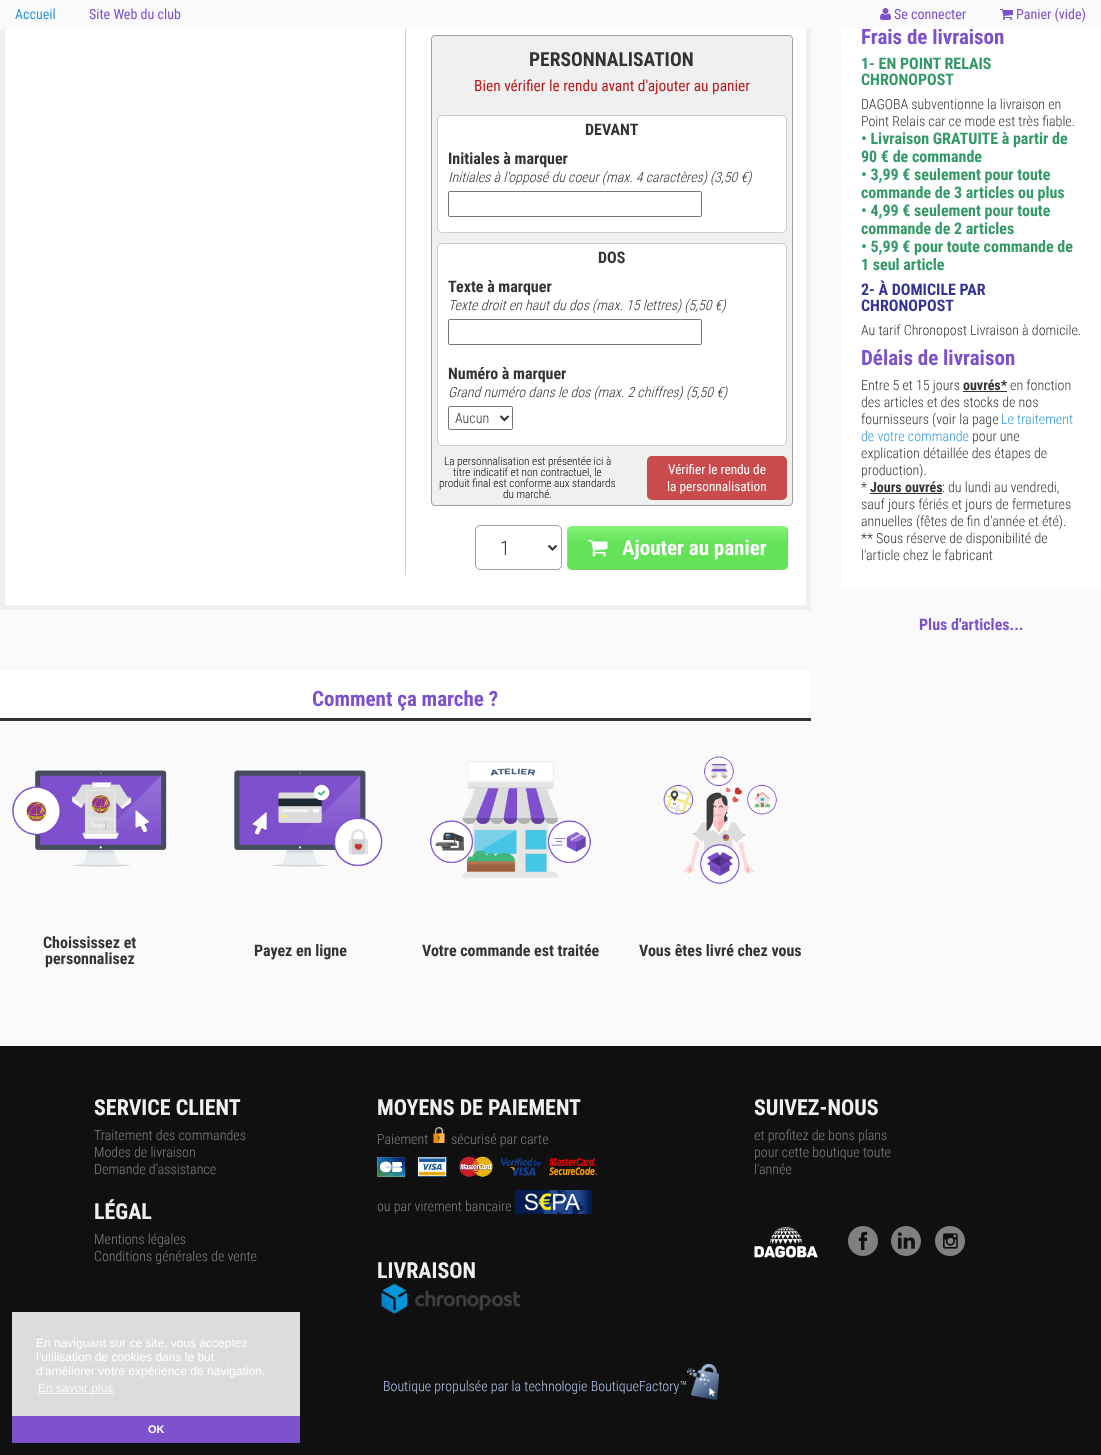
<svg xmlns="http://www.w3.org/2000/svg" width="1101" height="1455">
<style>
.a{font:14px Roboto Condensed;fill:#7d51cc}
.b{font:bold 19.5px Roboto Condensed;fill:#333}
.c{font:15.4px Roboto Condensed;fill:#b71c1c}
.d{font:bold 16px Roboto Condensed;fill:#333}
.e{font:italic 300 14px Roboto Condensed;fill:#333}
.f{font:300 14px Roboto Condensed;fill:#333}
.g{font:300 11.25px Roboto Condensed;fill:#000}
.h{font:13.25px Roboto Condensed;fill:#fff}
.i{font:300 20px Roboto Condensed;fill:#333}
.j{font:bold 21px Roboto Condensed;fill:#fff}
.k{font:bold 21px Roboto Condensed;fill:#7d51cc}
.l{font:14px Roboto Condensed;fill:#3498db}
.m{font:bold 16px Roboto Condensed;fill:#396}
.n{font:bold 16px Roboto Condensed;fill:#339}
.o{font:bold 14px Roboto Condensed;fill:#333}
.p{font:300 14px Roboto Condensed;fill:#3498db}
.q{font:bold 16px Roboto Condensed;fill:#7d51cc}
.r{font:bold 22px Roboto Condensed;fill:#f0f0f0}
.s{font:300 14px Roboto Condensed;fill:#808080}
.t{font:300 14px Roboto Condensed;fill:#b0c5ea}
.u{font:12px Liberation Sans;fill:#fff}
.v{font:12px Liberation Sans;fill:#f8f8f8}
.w{font:bold 11px Liberation Sans;fill:#fff}
</style>
<defs>
<clipPath id="clip1"><rect x="567" y="526" width="221" height="44" rx="5"/></clipPath>
<linearGradient id="g1" gradientUnits="userSpaceOnUse" x1="678" y1="527" x2="678" y2="569"><stop offset="0" stop-color="#81f177"/><stop offset="0.38" stop-color="#64e359"/></linearGradient>
</defs>
<rect width="100%" height="100%" fill="#fafafa"/>
<image href="2.png" x="1000" y="9" width="13" height="11"/>
<path fill="#fff" d="M5 29h801v576H5z"/>
<path fill="none" stroke="#f0f0f0" stroke-width="5" d="M2.5 -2.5h806v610H2.5z"/>
<path fill="#d0d0d0" d="M405 29h1v546H405z"/>
<rect fill="#f0f0f0" stroke="#a0a0a0" x="431.5" y="35.5" width="361" height="470" rx="3.5"/>
<rect fill="#fff" stroke="#ccc" x="437.5" y="115.5" width="349" height="117" rx="4.5"/>
<rect fill="none" stroke="#767676" x="448.5" y="191.5" width="253" height="25" rx="1.5"/>
<rect fill="#fff" stroke="#ccc" x="437.5" y="243.5" width="349" height="202" rx="4.5"/>
<rect fill="none" stroke="#767676" x="448.5" y="319.5" width="253" height="25" rx="1.5"/>
<rect fill="none" stroke="#767676" x="448.5" y="406.5" width="64" height="23" rx="1.5"/>
<path fill="none" stroke="#333" stroke-width="2" d="M500.5 416l4 4l4-4"/>
<rect fill="#ca4b4b" x="647" y="456" width="140" height="44" rx="5"/>
<rect fill="none" stroke="#a0a0a0" x="475.5" y="525.5" width="86" height="44" rx="4.5"/>
<path fill="none" stroke="#333" stroke-width="2" d="M548.5 545.5l4 4l4-4"/>
<g clip-path="url(#clip1)">
<path fill="url(#g1)" d="M567 527h221v42H567z"/>
</g>
<path fill="none" stroke="#71d368" d="M786 528c1 .5 1.5 2 1.5 3v34c0 1-.5 2.5-1.5 3c-.5 1-2 1.5-3 1.5h-211c-1 0-2.5-.5-3-1.5"/>
<path fill="none" stroke="#81f177" d="M569 568c-1-.5-1.5-2-1.5-3v-34c0-1 .5-2.5 1.5-3c.5-1 2-1.5 3-1.5h211c1 0 2.5 .5 3 1.5"/>
<image href="3.png" x="588" y="540" width="20" height="17"/>
<path fill="#fff" d="M0 670h811v48H0z"/>
<path fill="#333" d="M0 718h811v3H0z"/>
<image href="4.png" x="12" y="770" width="155" height="97"/>
<image href="5.png" x="234" y="770" width="149" height="97"/>
<image href="6.png" x="429" y="761" width="162" height="117"/>
<image href="7.png" x="663" y="756" width="114" height="128"/>
<path fill="#fff" d="M841 29h260v560H841z"/>
<path fill="#333" d="M963 391h44v1H963z"/>
<path fill="#333" d="M870 493h72v1H870z"/>
<path fill="#101010" d="M0 1046h1101v409H0z"/>
<image href="8.png" x="433" y="1127" width="12" height="16"/>
<image href="9.png" x="377" y="1156" width="220" height="21"/>
<image href="10.png" x="515" y="1190" width="77" height="24"/>
<image href="11.png" x="381" y="1283" width="140" height="31"/>
<image href="12.png" x="754" y="1227" width="64" height="31"/>
<image href="13.png" x="848" y="1226" width="30" height="30"/>
<image href="14.png" x="891" y="1226" width="30" height="30"/>
<image href="15.png" x="935" y="1226" width="30" height="30"/>
<image href="16.png" x="687" y="1364" width="32" height="36"/>
<path fill="#dcdcdc" d="M12 1312h288v104H12z"/>
<path fill="#f8f8f8" d="M38 1393h76v1H38z"/>
<path fill="#7d51cc" d="M12 1416h288v27H12z"/>
<text class="a" x="1016" y="19">Panier (vide)</text>
<text class="b" x="529" y="66">PERSONNALISATION</text>
<text class="c" x="474" y="91">Bien vérifier le rendu avant d'ajouter au panier</text>
<text class="d" x="585" y="135">DEVANT</text>
<text class="d" x="448" y="164">Initiales à marquer</text>
<text class="e" x="448" y="182">Initiales à l'opposé du coeur (max. 4 caractères) (3,50 €)</text>
<text class="d" x="598" y="263">DOS</text>
<text class="d" x="448" y="292">Texte à marquer</text>
<text class="e" x="448" y="310">Texte droit en haut du dos (max. 15 lettres) (5,50 €)</text>
<text class="d" x="448" y="379">Numéro à marquer</text>
<text class="e" x="448" y="397">Grand numéro dans le dos (max. 2 chiffres) (5,50 €)</text>
<text class="f" x="455" y="423">Aucun</text>
<text class="g" x="444" y="465">La personnalisation est présentée ici à</text>
<text class="g" x="453" y="476">titre indicatif et non contractuel, le</text>
<text class="g" x="439" y="487">produit final est conforme aux standards</text>
<text class="g" x="503" y="498">du marché.</text>
<text class="h" x="668" y="474">Vérifier le rendu de</text>
<text class="h" x="667" y="491">la personnalisation</text>
<text class="i" x="500" y="555">1</text>
<text class="j" x="622" y="555">Ajouter au panier</text>
<text class="k" x="312" y="706">Comment ça marche ?</text>
<text class="d" x="43" y="948">Choississez et</text>
<text class="d" x="45" y="964">personnalisez</text>
<text class="d" x="254" y="956">Payez en ligne</text>
<text class="d" x="422" y="956">Votre commande est traitée</text>
<text class="d" x="639" y="956">Vous êtes livré chez vous</text>
<text class="k" x="861" y="44">Frais de livraison</text>
<path fill="#fafafa" d="M0 0h973v29H0z"/>
<text class="a" x="894" y="19">Se connecter</text>
<image href="1.png" x="880" y="8" width="11" height="12"/>
<text class="a" x="89" y="19">Site Web du club</text>
<text class="l" x="15" y="19">Accueil</text>
<text class="m" x="861" y="69">1- EN POINT RELAIS</text>
<text class="m" x="861" y="85">CHRONOPOST</text>
<text class="f" x="861" y="109">DAGOBA subventionne la livraison en</text>
<text class="f" x="861" y="126">Point Relais car ce mode est très fiable.</text>
<text class="m" x="861" y="144">• Livraison GRATUITE à partir de</text>
<text class="m" x="861" y="162">90 € de commande</text>
<text class="m" x="861" y="180">• 3,99 € seulement pour toute</text>
<text class="m" x="861" y="198">commande de 3 articles ou plus</text>
<text class="m" x="861" y="216">• 4,99 € seulement pour toute</text>
<text class="m" x="861" y="234">commande de 2 articles</text>
<text class="m" x="861" y="252">• 5,99 € pour toute commande de</text>
<text class="m" x="861" y="270">1 seul article</text>
<text class="n" x="861" y="295">2- À DOMICILE PAR</text>
<text class="n" x="861" y="311">CHRONOPOST</text>
<text class="f" x="861" y="335">Au tarif Chronopost Livraison à domicile.</text>
<text class="k" x="861" y="365">Délais de livraison</text>
<text class="f" x="861" y="390">Entre 5 et 15 jours</text>
<text class="o" x="963" y="390">ouvrés*</text>
<text class="f" x="1010" y="390">en fonction</text>
<text class="f" x="861" y="407">des articles et des stocks de nos</text>
<text class="f" x="861" y="424">fournisseurs (voir la page</text>
<text class="p" x="1001" y="424">Le traitement</text>
<text class="p" x="861" y="441">de votre commande</text>
<text class="f" x="972" y="441">pour une</text>
<text class="f" x="861" y="458">explication détaillée des étapes de</text>
<text class="f" x="861" y="475">production).</text>
<text class="f" x="861" y="492">*</text>
<text class="o" x="870" y="492">Jours ouvrés</text>
<text class="f" x="942" y="492">: du lundi au vendredi,</text>
<text class="f" x="861" y="509">sauf jours fériés et jours de fermetures</text>
<text class="f" x="861" y="526">annuelles (fêtes de fin d'année et été).</text>
<text class="f" x="861" y="543">** Sous réserve de disponibilité de</text>
<text class="f" x="861" y="560">l'article chez le fabricant</text>
<text class="q" x="919" y="630">Plus d'articles...</text>
<text class="r" x="94" y="1115">SERVICE CLIENT</text>
<text class="s" x="94" y="1140">Traitement des commandes</text>
<text class="s" x="94" y="1157">Modes de livraison</text>
<text class="s" x="94" y="1174">Demande d'assistance</text>
<text class="r" x="94" y="1219">LÉGAL</text>
<text class="s" x="94" y="1244">Mentions légales</text>
<text class="s" x="94" y="1261">Conditions générales de vente</text>
<text class="r" x="377" y="1115">MOYENS DE PAIEMENT</text>
<text class="s" x="377" y="1144">Paiement</text>
<text class="s" x="451" y="1144">sécurisé par carte</text>
<text class="s" x="377" y="1211">ou par virement bancaire</text>
<text class="r" x="377" y="1278">LIVRAISON</text>
<text class="r" x="754" y="1115">SUIVEZ-NOUS</text>
<text class="s" x="754" y="1140">et profitez de bons plans</text>
<text class="s" x="754" y="1157">pour cette boutique toute</text>
<text class="s" x="754" y="1174">l'année</text>
<text class="t" x="383" y="1391">Boutique propulsée par la technologie BoutiqueFactory™</text>
<text class="u" x="36" y="1347">En naviguant sur ce site, vous acceptez</text>
<text class="u" x="36" y="1361">l’utilisation de cookies dans le but</text>
<text class="u" x="36" y="1375">d'améliorer votre expérience de navigation.</text>
<text class="v" x="38" y="1392">En savoir plus</text>
<text class="w" x="148" y="1433">OK</text>
</svg>
